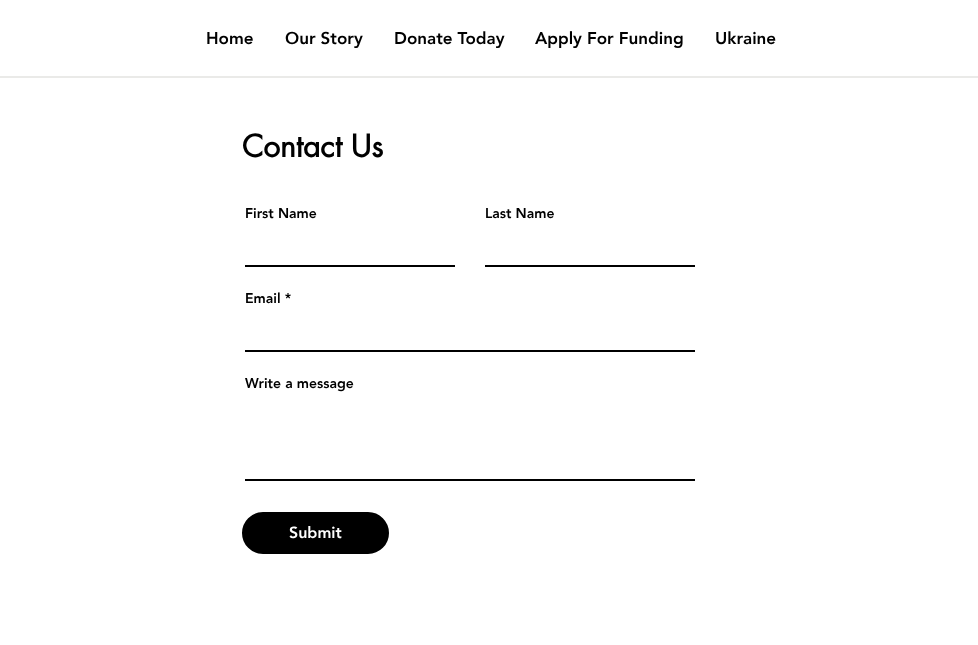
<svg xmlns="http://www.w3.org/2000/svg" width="978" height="645">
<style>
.a{font:900 17px 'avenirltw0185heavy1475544';fill:#000}
.b{font:bold 30px futura;fill:#000}
.c{font:900 14px 'avenirltw0185heavy1475544';fill:#000}
.d{font:900 16px 'avenirltw0185heavy1475544';fill:#fff}
</style>
<rect width="100%" height="100%" fill="#eaeae8"/>
<path fill="#fff" d="M0 0h978v76H0z"/>
<path fill="#fff" d="M0 78h978v567H0z"/>
<path fill="#000" d="M245 265h210v2H245z"/>
<path fill="#000" d="M485 265h210v2H485z"/>
<path fill="#000" d="M245 350h450v2H245z"/>
<path fill="#000" d="M245 479h450v2H245z"/>
<rect fill="#000" stroke="#000" stroke-width="2" x="243" y="513" width="145" height="40" rx="20"/>
<text class="a" x="206" y="44">Home</text>
<text class="a" x="285" y="44">Our Story</text>
<text class="a" x="394" y="44">Donate Today</text>
<text class="a" x="535" y="44">Apply For Funding</text>
<text class="a" x="715" y="44">Ukraine</text>
<text class="b" x="242" y="157">Contact Us</text>
<text class="c" x="245" y="218">First Name</text>
<text class="c" x="485" y="218">Last Name</text>
<text class="c" x="245" y="303">Email *</text>
<text class="c" x="245" y="388">Write a message</text>
<text class="d" x="289" y="538">Submit</text>
</svg>
